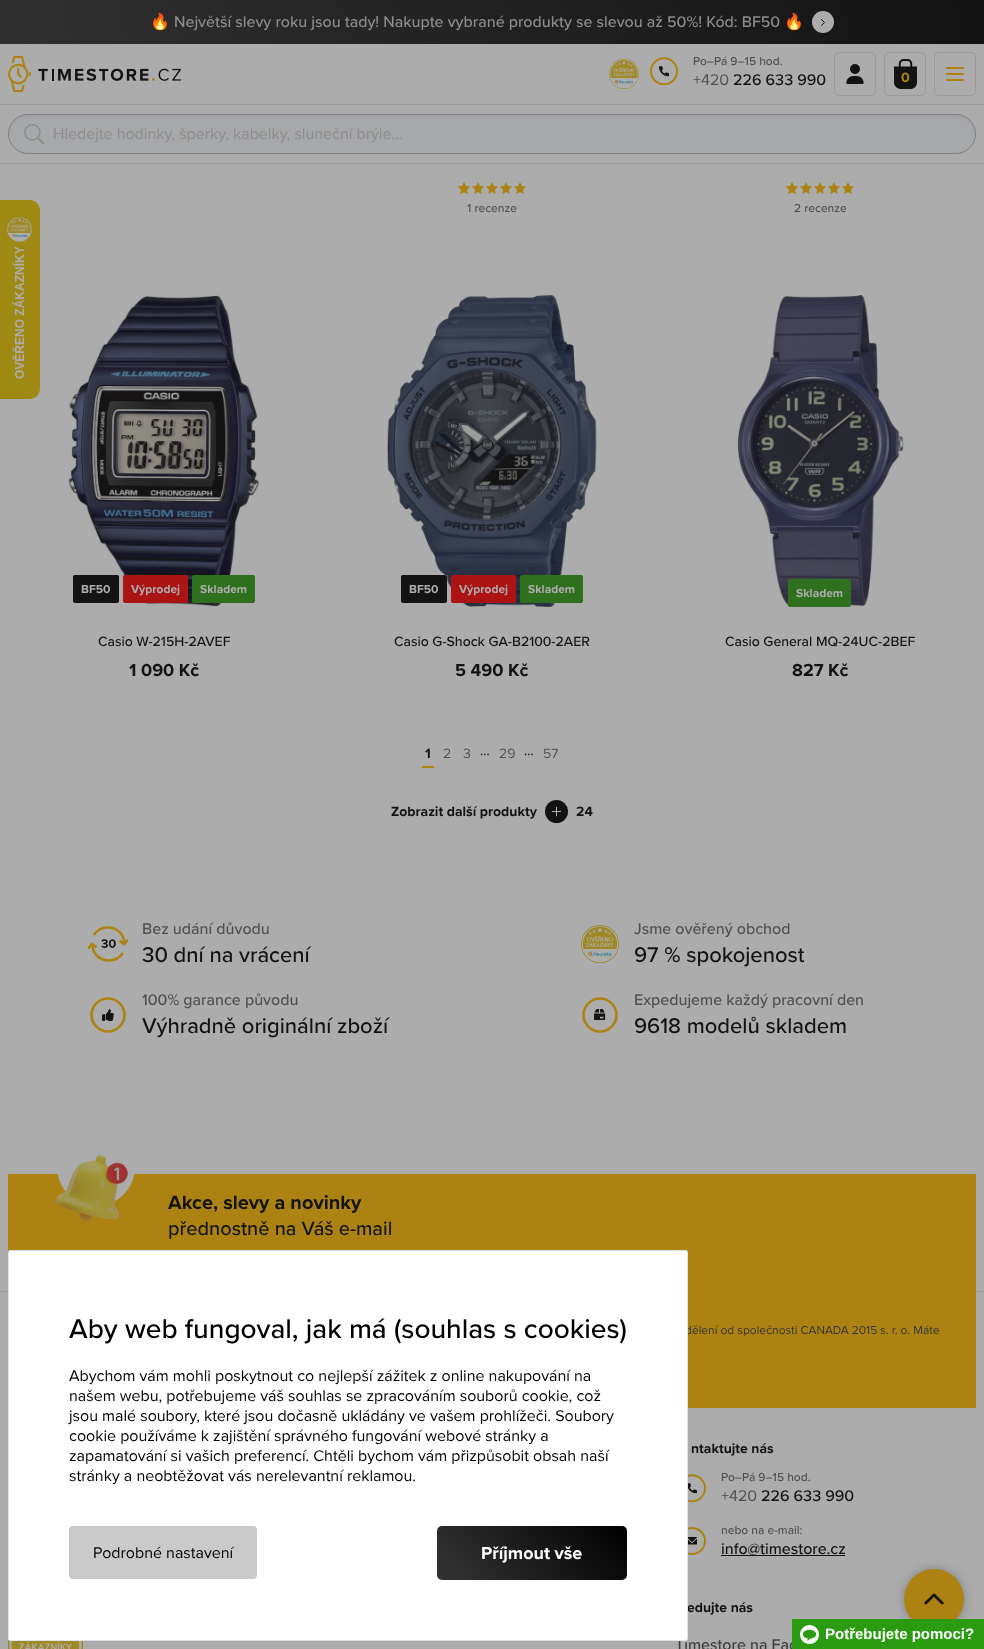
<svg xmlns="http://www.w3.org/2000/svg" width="984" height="1649">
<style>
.a{font:16px Noto Color Emoji;fill:#8c8c8d}
.b{font:500 16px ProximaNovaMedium;fill:#8c8c8d}
.c{font:500 12px ProximaNovaMedium;fill:#505050}
.d{font:16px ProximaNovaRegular;fill:#505050}
.e{font:500 16px ProximaNovaMedium;fill:#131313}
.f{font:bold 14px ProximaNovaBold;fill:#ac8313}
.g{font:16px ProximaNovaRegular;fill:#8c8c8d}
.h{font:bold 12px ProximaNovaBold;fill:#acacac}
.i{font:500 14px ProximaNovaMedium;fill:#131313}
.j{font:bold 18px ProximaNovaBold;fill:#131313}
.k{font:bold 14px ProximaNovaBold;fill:#131313}
.l{font:14px ProximaNovaRegular;fill:#505050}
.m{font:14px ProximaNovaRegular;fill:#131313}
.n{font:500 16px ProximaNovaMedium;fill:#505050}
.o{font:500 22px ProximaNovaMedium;fill:#131313}
.p{font:bold 20px ProximaNovaBold;fill:#131313}
.q{font:500 20px ProximaNovaMedium;fill:#131313}
.r{font:12px ProximaNovaRegular;fill:#353535}
.s{font:500 16px ProximaNovaMedium;fill:#3d3d3d}
.t{font:500 28px ProximaNovaMedium;fill:#000}
.u{font:16px ProximaNovaRegular;fill:#000}
.v{font:bold 18px ProximaNovaBold;fill:#fff}
.w{font:bold 15px Liberation Sans;fill:#fff}
</style>
<defs>
<linearGradient id="g1" gradientUnits="userSpaceOnUse" x1="27" y1="146" x2="957" y2="-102"><stop offset="0" stop-color="#303030"/><stop offset="1" stop-color="#131313"/></linearGradient>
<linearGradient id="g2" gradientUnits="userSpaceOnUse" x1="312" y1="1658" x2="562" y2="1448"><stop offset="0" stop-color="#383838"/><stop offset="0.5" stop-color="#303030"/><stop offset="1" stop-color="#000"/></linearGradient>
</defs>
<rect width="100%" height="100%" fill="#acacac"/>
<path fill="url(#g1)" d="M0 0h984v44H0z"/>
<circle fill="#acacac" cx="823" cy="22" r="11"/>
<path fill="none" stroke="#131313" stroke-linecap="round" stroke-linejoin="round" d="M821.5 19.5l3 3l-3 3"/>
<image href="1.png" x="8" y="56" width="173" height="36"/>
<image href="2.png" x="609" y="59" width="30" height="30"/>
<image href="3.png" x="650" y="57" width="28" height="29"/>
<rect fill="none" stroke="#999b9e" x="834.5" y="52.5" width="41" height="43" rx="4.5"/>
<image href="4.png" x="846" y="64" width="18" height="20"/>
<rect fill="none" stroke="#999b9e" x="884.5" y="52.5" width="41" height="43" rx="4.5"/>
<image href="5.png" x="894" y="59" width="23" height="30"/>
<rect fill="none" stroke="#999b9e" x="934.5" y="52.5" width="41" height="43" rx="4.5"/>
<image href="6.png" x="946" y="67" width="18" height="14"/>
<path fill="#999b9e" d="M0 104h984v1H0z"/>
<path fill="#999b9e" d="M0 163h984v1H0z"/>
<rect fill="#a7a8aa" x="8" y="114" width="968" height="40" rx="20"/>
<path fill="#a2a4a7" d="M28 118h928c10 0 18 8 19 18v-2c0-10-9-19-19-19h-928c-10 0-19 9-19 19v2c1-10 9-18 19-18z"/>
<rect fill="none" stroke="#7f8183" x="8.5" y="114.5" width="967" height="39" rx="19.5"/>
<image href="7.png" x="24" y="124" width="20" height="20"/>
<image href="8.png" x="0" y="200" width="40" height="199"/>
<image href="9.png" x="458" y="182" width="12" height="12"/>
<image href="10.png" x="458" y="182" width="12" height="12"/>
<image href="9.png" x="472" y="182" width="12" height="12"/>
<image href="9.png" x="486" y="182" width="12" height="12"/>
<image href="11.png" x="500" y="182" width="12" height="12"/>
<image href="9.png" x="514" y="182" width="12" height="12"/>
<image href="9.png" x="786" y="182" width="12" height="12"/>
<image href="10.png" x="786" y="182" width="12" height="12"/>
<image href="9.png" x="800" y="182" width="12" height="12"/>
<image href="9.png" x="814" y="182" width="12" height="12"/>
<image href="9.png" x="828" y="182" width="12" height="12"/>
<image href="9.png" x="842" y="182" width="12" height="12"/>
<image href="12.png" x="68" y="295" width="192" height="312"/>
<rect fill="#131313" x="73" y="575" width="46" height="28" rx="2"/>
<rect fill="#ac1313" x="123" y="575" width="65" height="28" rx="2"/>
<rect fill="#2e701e" x="192" y="575" width="63" height="28" rx="2"/>
<image href="13.png" x="387" y="295" width="210" height="312"/>
<rect fill="#131313" x="401" y="575" width="46" height="28" rx="2"/>
<rect fill="#ac1313" x="451" y="575" width="65" height="28" rx="2"/>
<rect fill="#2e701e" x="520" y="575" width="63" height="28" rx="2"/>
<image href="14.png" x="737" y="295" width="167" height="312"/>
<rect fill="#2e701e" x="788" y="579" width="63" height="28" rx="2"/>
<path fill="#ac8313" d="M422 766h12v2H422z"/>
<image href="15.png" x="545" y="800" width="23" height="23"/>
<image href="16.png" x="87" y="926" width="42" height="36"/>
<image href="17.png" x="580" y="925" width="40" height="38"/>
<image href="18.png" x="90" y="997" width="36" height="36"/>
<image href="19.png" x="582" y="997" width="36" height="36"/>
<path fill="#999b9e" d="M0 1291h984v1H0z"/>
<path fill="#ac8313" d="M8 1174h968v234H8z"/>
<image href="20.png" x="56" y="1152" width="79" height="69"/>
<image href="21.png" x="8" y="1639" width="75" height="10"/>
<image href="22.png" x="688" y="1474" width="18" height="29"/>
<image href="23.png" x="688" y="1527" width="18" height="28"/>
<path fill="#131313" d="M721 1555h124v1H721z"/>
<rect fill="#1313134d" filter="blur(5px)" x="904" y="1569" width="60" height="60" rx="30"/>
<circle fill="#ac8313" cx="934" cy="1599" r="30"/>
<image href="24.png" x="924" y="1593" width="20" height="12"/>
<text class="a" x="150" y="27">🔥</text>
<text class="b" x="174" y="27">Největší slevy roku jsou tady! Nakupte vybrané produkty se slevou až 50%! Kód: BF50</text>
<text class="a" x="784" y="27">🔥</text>
<text class="c" x="693" y="65">Po–Pá 9–15 hod.</text>
<text class="d" x="693" y="85">+420</text>
<text class="e" x="733" y="85">226 633 990</text>
<text class="f" x="901" y="82">0</text>
<text class="g" x="53" y="139">Hledejte hodinky, šperky, kabelky, sluneční brýle...</text>
<text class="c" x="467" y="212">1 recenze</text>
<text class="c" x="794" y="212">2 recenze</text>
<text class="h" x="81" y="593">BF50</text>
<text class="h" x="131" y="593">Výprodej</text>
<text class="h" x="200" y="593">Skladem</text>
<text class="i" x="98" y="646">Casio W-215H-2AVEF</text>
<text class="j" x="129" y="676">1 090 Kč</text>
<text class="h" x="409" y="593">BF50</text>
<text class="h" x="459" y="593">Výprodej</text>
<text class="h" x="528" y="593">Skladem</text>
<text class="i" x="394" y="646">Casio G-Shock GA-B2100-2AER</text>
<text class="j" x="455" y="676">5 490 Kč</text>
<text class="h" x="796" y="597">Skladem</text>
<text class="i" x="725" y="646">Casio General MQ-24UC-2BEF</text>
<text class="j" x="792" y="676">827 Kč</text>
<text class="k" x="425" y="758">1</text>
<text class="l" x="443" y="758">2</text>
<text class="l" x="463" y="758">3</text>
<text class="m" x="480" y="755">…</text>
<text class="l" x="499" y="758">29</text>
<text class="m" x="524" y="755">…</text>
<text class="l" x="543" y="758">57</text>
<text class="k" x="391" y="816">Zobrazit další produkty</text>
<text class="k" x="576" y="816">24</text>
<text class="n" x="142" y="934">Bez udání důvodu</text>
<text class="o" x="142" y="962">30 dní na vrácení</text>
<text class="n" x="634" y="934">Jsme ověřený obchod</text>
<text class="o" x="634" y="962">97 % spokojenost</text>
<text class="n" x="142" y="1005">100% garance původu</text>
<text class="o" x="142" y="1033">Výhradně originální zboží</text>
<text class="n" x="634" y="1005">Expedujeme každý pracovní den</text>
<text class="o" x="634" y="1033">9618 modelů skladem</text>
<text class="p" x="168" y="1209">Akce, slevy a novinky</text>
<text class="q" x="168" y="1235">přednostně na Váš e-mail</text>
<text class="r" x="685" y="1334">dělení od společnosti CANADA 2015 s. r. o. Máte</text>
<text class="k" x="691" y="1453">ntaktujte nás</text>
<text class="c" x="721" y="1481">Po–Pá 9–15 hod.</text>
<text class="d" x="721" y="1501">+420</text>
<text class="e" x="761" y="1501">226 633 990</text>
<text class="c" x="721" y="1534">nebo na e-mail:</text>
<text class="e" x="721" y="1554">info@timestore.cz</text>
<text class="k" x="687" y="1612">edujte nás</text>
<text class="s" x="675" y="1650">Timestore na Fac</text>
<rect fill="none" stroke="#dfe3e7" x="8.5" y="1250.5" width="679" height="390" rx="1.5"/>
<rect fill="#fff" x="9" y="1251" width="678" height="389" rx="1"/>
<text class="t" x="69" y="1338">Aby web fungoval, jak má (souhlas s cookies)</text>
<text class="u" x="69" y="1381">Abychom vám mohli poskytnout co nejlepší zážitek z online nakupování na</text>
<text class="u" x="69" y="1401">našem webu, potřebujeme váš souhlas se zpracováním souborů cookie, což</text>
<text class="u" x="69" y="1421">jsou malé soubory, které jsou dočasně ukládány ve vašem prohlížeči. Soubory</text>
<text class="u" x="69" y="1441">cookie používáme k zajištění správného fungování webové stránky a</text>
<text class="u" x="69" y="1461">zapamatování si vašich preferencí. Chtěli bychom vám přizpůsobit obsah naší</text>
<text class="u" x="69" y="1481">stránky a neobtěžovat vás nerelevantní reklamou.</text>
<rect fill="#cacacb" x="69" y="1526" width="188" height="53" rx="4"/>
<text class="u" x="93" y="1558">Podrobné nastavení</text>
<rect fill="url(#g2)" x="437" y="1526" width="190" height="54" rx="5"/>
<text class="v" x="481" y="1559">Příjmout vše</text>
<path fill="#2b9b11" d="M792 1619h192v30H792z"/>
<image href="25.png" x="800" y="1625" width="19" height="19"/>
<text class="w" x="825" y="1639">Potřebujete pomoci?</text>
</svg>
